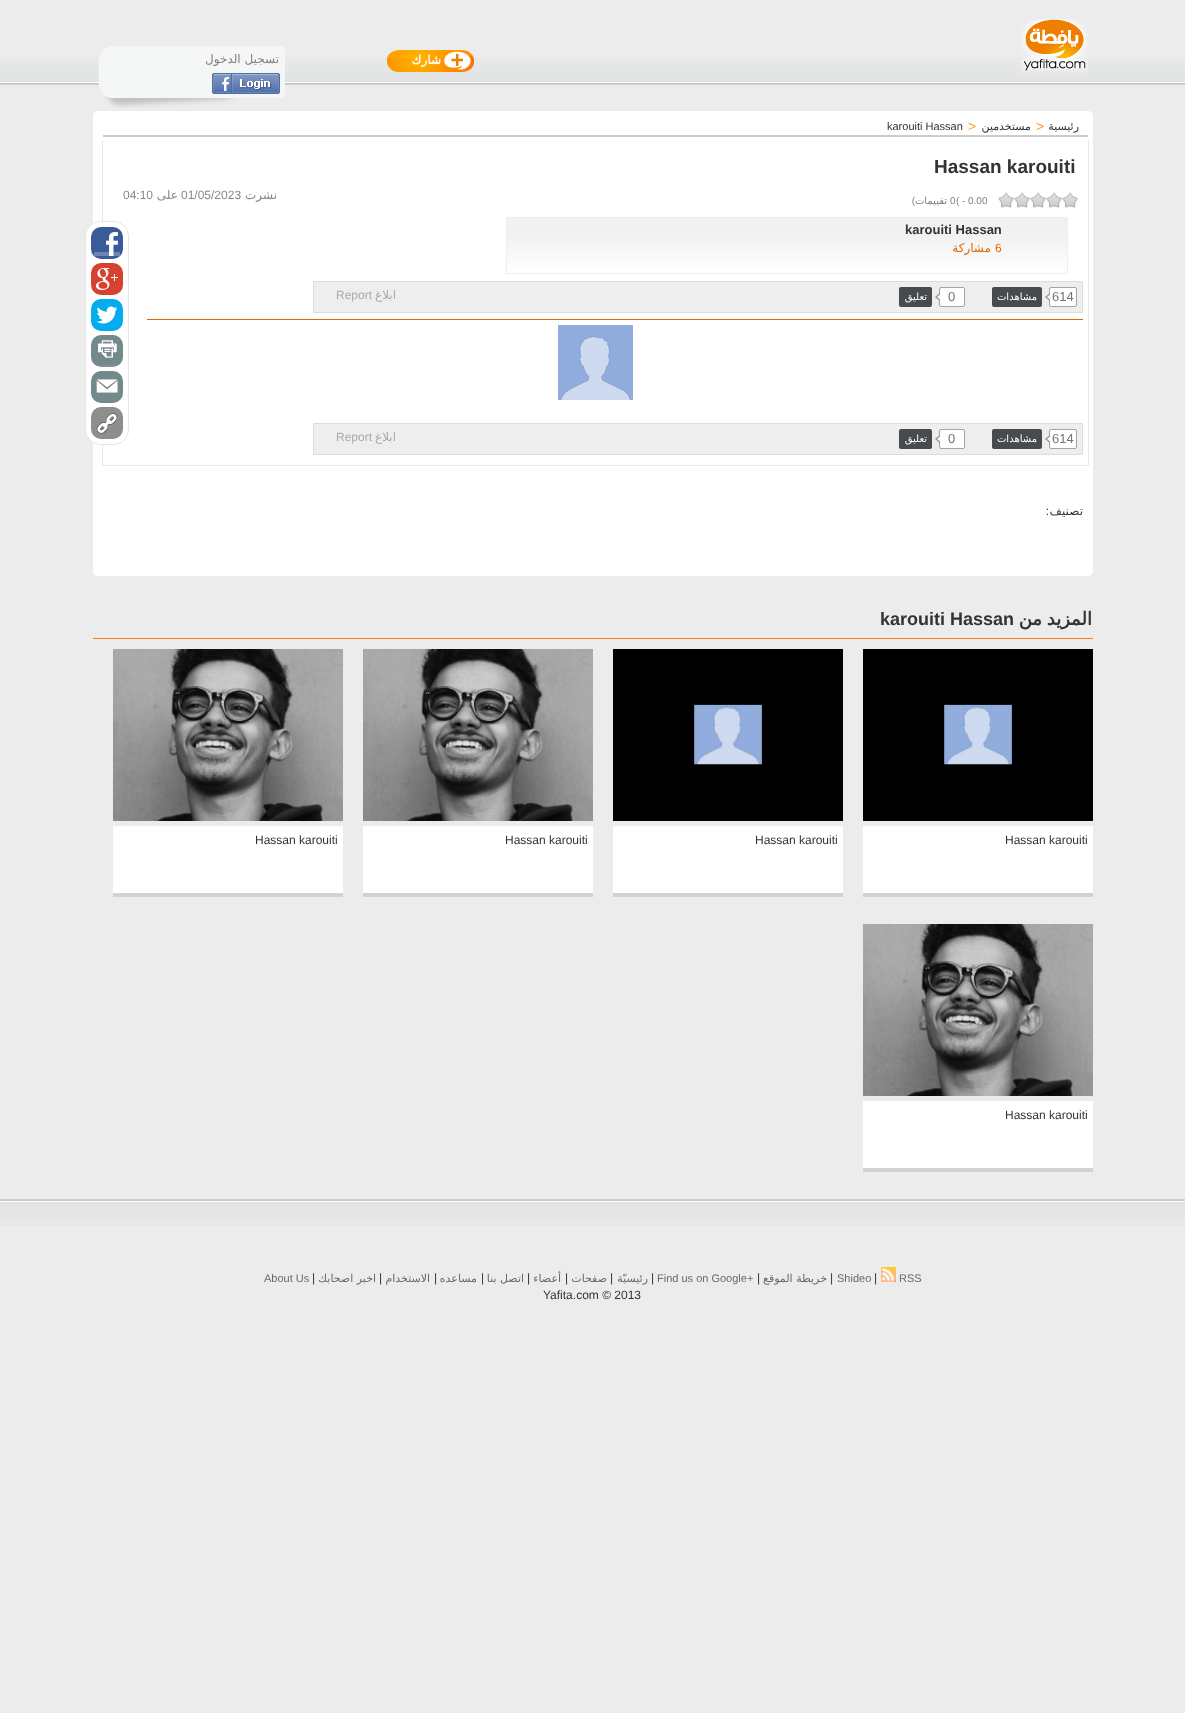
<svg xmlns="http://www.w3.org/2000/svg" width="1185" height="1713">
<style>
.a{font:12px DejaVu Sans;direction:rtl;fill:#808080}
.b{font:bold 12px DejaVu Sans;direction:rtl;fill:#fff}
.c{font:11px Liberation Sans;fill:#333}
.d{font:14px Liberation Sans;fill:#ff9828}
.e{font:11px DejaVu Sans;direction:rtl;fill:#333}
.f{font:bold 19px Liberation Sans;fill:#333}
.g{font:12px Liberation Sans;fill:#888}
.h{font:12px DejaVu Sans;direction:rtl;fill:#888}
.i{font:10px Liberation Sans;direction:rtl;fill:#808080}
.j{font:10px DejaVu Sans;direction:rtl;fill:#808080}
.k{font:10px Liberation Sans;fill:#808080}
.l{font:bold 13px Liberation Sans;fill:#333}
.m{font:12px DejaVu Sans;direction:rtl;fill:#df6800}
.n{font:12px Liberation Sans;fill:#df6800}
.o{font:12px Liberation Sans;fill:#a7a9aa}
.p{font:12px DejaVu Sans;direction:rtl;fill:#a7a9aa}
.q{font:10px DejaVu Sans;direction:rtl;fill:#fff}
.r{font:13px Liberation Sans;fill:#747474}
.s{font:12px Liberation Sans;direction:rtl;fill:#333}
.t{font:12px DejaVu Sans;direction:rtl;fill:#333}
.u{font:bold 18px Liberation Sans;fill:#333}
.v{font:bold 18px DejaVu Sans;direction:rtl;fill:#333}
.w{font:12px Liberation Sans;fill:#333}
.x{font:11px Liberation Sans;fill:#696969}
.y{font:11px DejaVu Sans;direction:rtl;fill:#696969}
</style>
<defs>
<linearGradient id="g1" gradientUnits="userSpaceOnUse" x1="507" y1="218" x2="507" y2="273"><stop offset="0.3" stop-color="#f1f1f1"/><stop offset="1" stop-color="#fff"/></linearGradient>
</defs>
<rect width="100%" height="100%" fill="#ececed"/>
<image href="1.png" x="0" y="58" width="1185" height="27"/>
<image href="2.png" x="98" y="46" width="187" height="62"/>
<image href="3.png" x="212" y="73" width="68" height="21"/>
<image href="4.png" x="387" y="50" width="87" height="22"/>
<image href="5.png" x="1020" y="19" width="68" height="54"/>
<rect fill="#fff" x="93" y="111" width="1000" height="465" rx="5"/>
<path fill="#ccc" d="M103 135h985v2H103z"/>
<path fill="#e8e8e8" d="M1088 140h1v326H1088z"/>
<path fill="#e8e8e8" d="M102 465h987v1H102z"/>
<path fill="#e8e8e8" d="M102 140h1v326H102z"/>
<image href="6.png" x="998" y="192" width="80" height="16"/>
<rect fill="#fff" stroke="#e6e6e6" x="85.5" y="221.5" width="43" height="223" rx="14.5"/>
<image href="7.png" x="91" y="227" width="32" height="32"/>
<image href="8.png" x="91" y="263" width="32" height="32"/>
<image href="9.png" x="91" y="299" width="32" height="32"/>
<image href="10.png" x="91" y="335" width="32" height="32"/>
<image href="11.png" x="91" y="371" width="32" height="32"/>
<image href="12.png" x="91" y="407" width="32" height="32"/>
<path fill="url(#g1)" d="M507 218h560v48H507z"/>
<path fill="none" stroke="#eee" d="M506.5 217.5h561v56H506.5z"/>
<path fill="#eee" stroke="#ddd" d="M313.5 281.5h769v31H313.5z"/>
<rect fill="#484b4d" x="899" y="287" width="33" height="20" rx="2"/>
<rect fill="#fff" stroke="#a5a3a3" x="939.5" y="287.5" width="25" height="19" rx="1.5"/>
<path fill="#898f9c" d="M940 293v8l-5-4z"/>
<path fill="#fff" d="M942 293v8l-5-4z"/>
<rect fill="#484b4d" x="992" y="287" width="50" height="20" rx="2"/>
<rect fill="#fff" stroke="#a5a3a3" x="1049.5" y="287.5" width="27" height="19" rx="1.5"/>
<path fill="#898f9c" d="M1050 293v8l-5-4z"/>
<path fill="#fff" d="M1052 293v8l-5-4z"/>
<path fill="#df6800" d="M147 319h936v1H147z"/>
<image href="13.png" x="558" y="325" width="75" height="75"/>
<path fill="#eee" stroke="#ddd" d="M313.5 423.5h769v31H313.5z"/>
<rect fill="#484b4d" x="899" y="429" width="33" height="20" rx="2"/>
<rect fill="#fff" stroke="#a5a3a3" x="939.5" y="429.5" width="25" height="19" rx="1.5"/>
<path fill="#898f9c" d="M940 435v8l-5-4z"/>
<path fill="#fff" d="M942 435v8l-5-4z"/>
<rect fill="#484b4d" x="992" y="429" width="50" height="20" rx="2"/>
<rect fill="#fff" stroke="#a5a3a3" x="1049.5" y="429.5" width="27" height="19" rx="1.5"/>
<path fill="#898f9c" d="M1050 435v8l-5-4z"/>
<path fill="#fff" d="M1052 435v8l-5-4z"/>
<path fill="#f3850e" d="M93 638h1000v1H93z"/>
<image href="14.png" x="113" y="649" width="230" height="172"/>
<path fill="#fff" d="M113 826h230v67H113z"/>
<path fill="#d2d2d2" d="M113 893h230v4H113z"/>
<image href="14.png" x="363" y="649" width="230" height="172"/>
<path fill="#fff" d="M363 826h230v67H363z"/>
<path fill="#d2d2d2" d="M363 893h230v4H363z"/>
<image href="15.png" x="613" y="649" width="230" height="172"/>
<path fill="#fff" d="M613 826h230v67H613z"/>
<path fill="#d2d2d2" d="M613 893h230v4H613z"/>
<image href="15.png" x="863" y="649" width="230" height="172"/>
<path fill="#fff" d="M863 826h230v67H863z"/>
<path fill="#d2d2d2" d="M863 893h230v4H863z"/>
<image href="16.png" x="863" y="924" width="230" height="172"/>
<path fill="#fff" d="M863 1101h230v67H863z"/>
<path fill="#d2d2d2" d="M863 1168h230v4H863z"/>
<image href="17.png" x="0" y="1199" width="1185" height="27"/>
<image href="18.png" x="881" y="1267" width="15" height="15"/>
<text class="a" x="279" y="63">تسجيل الدخول</text>
<text class="b" x="441" y="64">شارك</text>
<text class="c" x="887" y="130">karouiti Hassan</text>
<text class="d" x="968" y="131">&gt;</text>
<text class="e" x="1031" y="130">مستخدمين</text>
<text class="d" x="1036" y="131">&gt;</text>
<text class="e" x="1079" y="130">رئيسية</text>
<text class="f" x="934" y="173">Hassan karouiti</text>
<text class="g" x="123" y="199">04:10</text>
<text class="h" x="178" y="199">على</text>
<text class="g" x="181" y="199">01/05/2023</text>
<text class="h" x="277" y="199">نشرت</text>
<text class="i" x="915" y="204">)</text>
<text class="j" x="947" y="204">تقييمات</text>
<text class="k" x="950" y="204">0</text>
<text class="k" x="956" y="204">(</text>
<text class="k" x="962" y="204">-</text>
<text class="k" x="968" y="204">0.00</text>
<text class="l" x="905" y="234">karouiti Hassan</text>
<text class="m" x="991" y="252">مشاركة</text>
<text class="n" x="995" y="252">6</text>
<text class="o" x="336" y="299">Report</text>
<text class="p" x="396" y="299">ابلاغ</text>
<text class="q" x="927" y="300">تعليق</text>
<text class="r" x="948" y="301">0</text>
<text class="q" x="1037" y="300">مشاهدات</text>
<text class="r" x="1052" y="301">614</text>
<text class="o" x="336" y="441">Report</text>
<text class="p" x="396" y="441">ابلاغ</text>
<text class="q" x="927" y="442">تعليق</text>
<text class="r" x="948" y="443">0</text>
<text class="q" x="1037" y="442">مشاهدات</text>
<text class="r" x="1052" y="443">614</text>
<text class="s" x="1049" y="515">:</text>
<text class="t" x="1083" y="515">تصنيف</text>
<text class="u" x="880" y="625">karouiti Hassan</text>
<text class="v" x="1092" y="625" word-spacing="-1">المزيد من</text>
<text class="w" x="255" y="844">Hassan karouiti</text>
<text class="w" x="505" y="844">Hassan karouiti</text>
<text class="w" x="755" y="844">Hassan karouiti</text>
<text class="w" x="1005" y="844">Hassan karouiti</text>
<text class="w" x="1005" y="1119">Hassan karouiti</text>
<text class="x" x="264" y="1282">About Us</text>
<text class="w" x="312" y="1282">|</text>
<text class="y" x="376" y="1282">اخبر اصحابك</text>
<text class="w" x="379" y="1282">|</text>
<text class="y" x="430" y="1282">الاستخدام</text>
<text class="w" x="434" y="1282">|</text>
<text class="y" x="477" y="1282">مساعده</text>
<text class="w" x="481" y="1282">|</text>
<text class="y" x="524" y="1282">اتصل بنا</text>
<text class="w" x="527" y="1282">|</text>
<text class="y" x="561" y="1282">أعضاء</text>
<text class="w" x="565" y="1282">|</text>
<text class="y" x="607" y="1282">صفحات</text>
<text class="w" x="610" y="1282">|</text>
<text class="y" x="648" y="1282">رئيسيّة</text>
<text class="w" x="651" y="1282">|</text>
<text class="x" x="657" y="1282">Find us on Google+</text>
<text class="w" x="757" y="1282">|</text>
<text class="y" x="827" y="1282">خريطة الموقع</text>
<text class="w" x="830" y="1282">|</text>
<text class="x" x="837" y="1282">Shideo</text>
<text class="w" x="874" y="1282">|</text>
<text class="x" x="899" y="1282">RSS</text>
<text class="w" x="543" y="1299">Yafita.com © 2013</text>
</svg>
